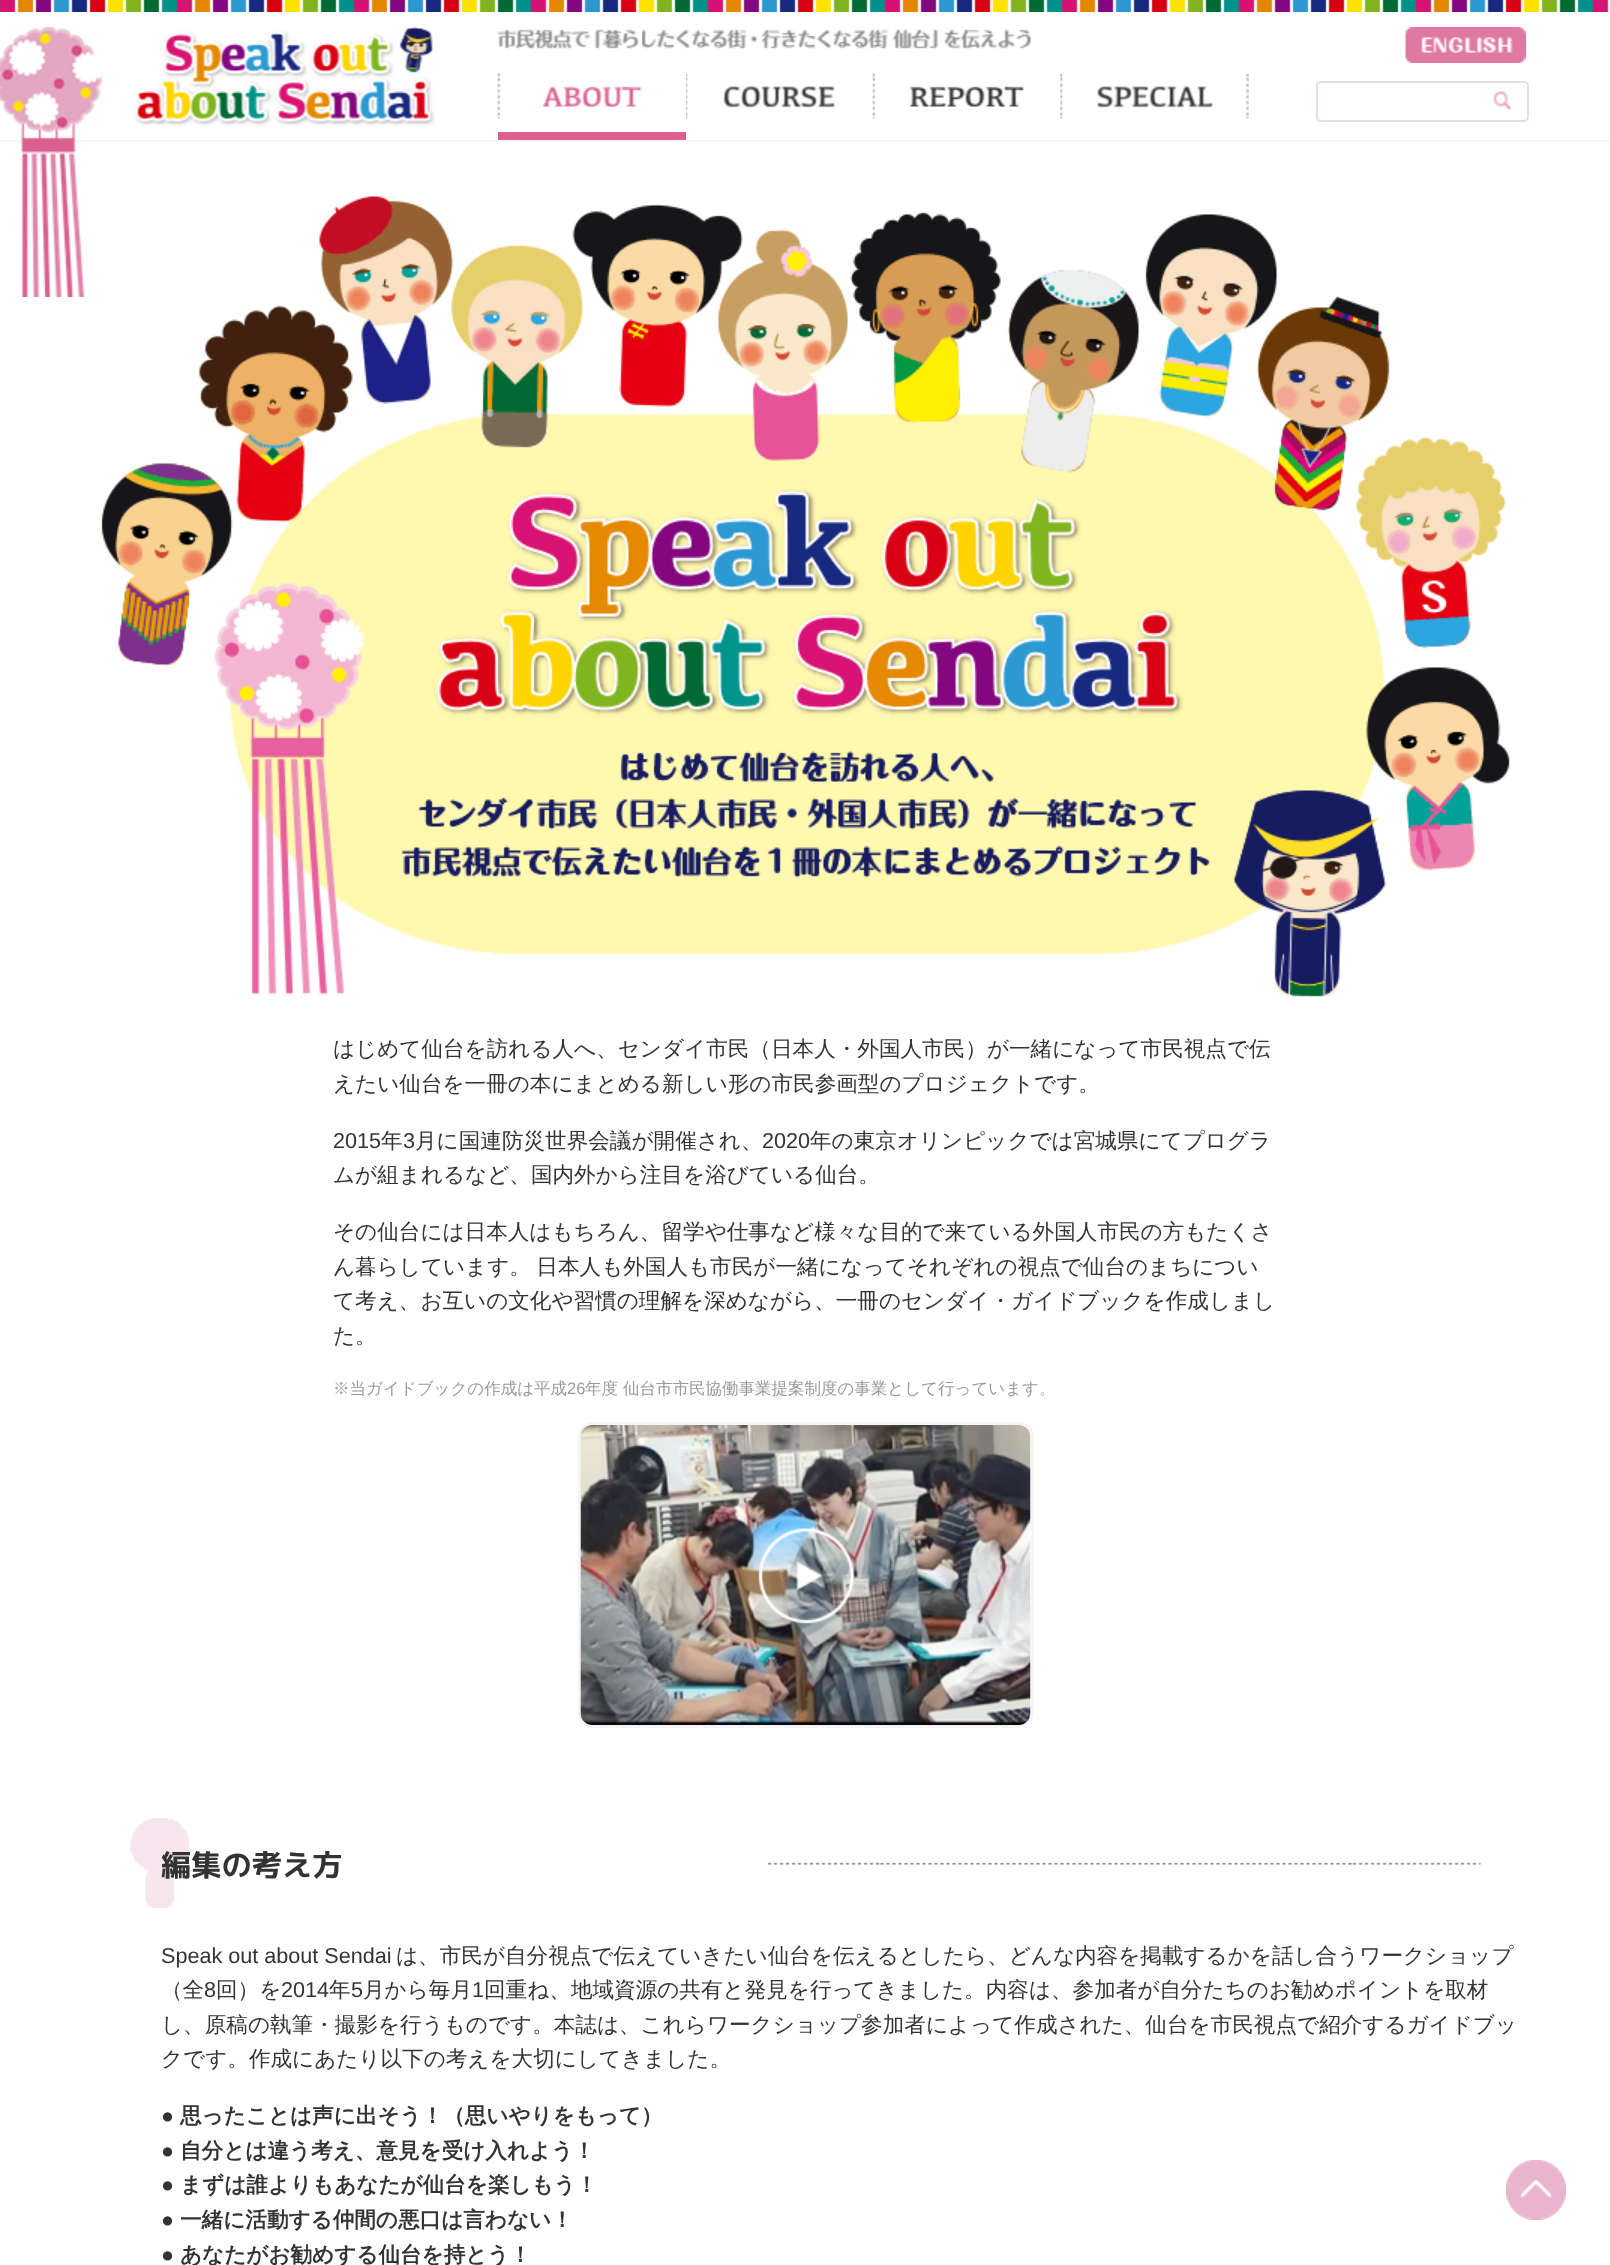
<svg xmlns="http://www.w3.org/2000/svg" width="1610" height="2265">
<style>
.a{font:500 21.6px WenQuanYi Zen Hei;fill:#333}
.b{font:21.6px Liberation Sans;fill:#333}
.c{font:500 16.5px WenQuanYi Zen Hei;fill:#999}
.d{font:16.5px Liberation Sans;fill:#999}
.e{font:bold 30.25px 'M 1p';fill:#333}
.f{font:bold 21.6px Liberation Sans;fill:#333}
.g{font:bold 21.6px WenQuanYi Zen Hei;fill:#333}
</style>
<rect width="100%" height="100%" fill="#fff"/>
<image href="1.png" x="0" y="0" width="1609" height="12"/>
<path fill="#f5f5f5" d="M0 140h1610v2H0z"/>
<image href="11.png" x="101" y="196" width="1409" height="801"/>
<image href="2.png" x="0" y="27" width="104" height="270"/>
<image href="3.png" x="134" y="27" width="301" height="99"/>
<image href="4.png" x="497" y="29" width="534" height="20"/>
<image href="5.png" x="497" y="73" width="145" height="46"/>
<image href="6.png" x="686" y="74" width="149" height="45"/>
<image href="7.png" x="872" y="73" width="152" height="46"/>
<image href="8.png" x="1060" y="74" width="189" height="45"/>
<path fill="#db5f90" d="M498 132h188v8H498z"/>
<image href="9.png" x="1405" y="27" width="121" height="36"/>
<rect fill="none" stroke="#e6dcdc" stroke-width="2" x="1317" y="82" width="211" height="39" rx="4"/>
<image href="10.png" x="1493" y="91" width="18" height="19"/>
<rect fill="none" stroke="#f5f5f5" stroke-width="3" x="579.5" y="1423.5" width="453" height="303" rx="13.5"/>
<image href="12.png" x="580" y="1425" width="451" height="300"/>
<image href="13.png" x="130" y="1818" width="1351" height="90"/>
<image href="14.png" x="1506" y="2160" width="60" height="60"/>
<text class="a" x="333" y="1056">はじめて仙台を訪れる人へ、センダイ市民（日本人・外国人市民）が一緒になって市民視点で伝</text>
<text class="a" x="333" y="1091">えたい仙台を一冊の本にまとめる新しい形の市民参画型のプロジェクトです。</text>
<text class="b" x="333" y="1148">2015</text>
<text class="a" x="381" y="1148">年</text>
<text class="b" x="403" y="1148">3</text>
<text class="a" x="415" y="1148">月に国連防災世界会議が開催され、</text>
<text class="b" x="762" y="1148">2020</text>
<text class="a" x="810" y="1148">年の東京オリンピックでは宮城県にてプログラ</text>
<text class="a" x="333" y="1182">ムが組まれるなど、国内外から注目を浴びている仙台。</text>
<text class="a" x="333" y="1239">その仙台には日本人はもちろん、留学や仕事など様々な目的で来ている外国人市民の方もたくさ</text>
<text class="a" x="333" y="1274" word-spacing="-1">ん暮らしています。 日本人も外国人も市民が一緒になってそれぞれの視点で仙台のまちについ</text>
<text class="a" x="333" y="1308">て考え、お互いの文化や習慣の理解を深めながら、一冊のセンダイ・ガイドブックを作成しまし</text>
<text class="a" x="333" y="1343">た。</text>
<text class="c" x="333" y="1394">※当ガイドブックの作成は平成</text>
<text class="d" x="567" y="1394">26</text>
<text class="c" x="585" y="1394">年度 仙台市市民協働事業提案制度の事業として行っています。</text>
<text class="e" x="161" y="1876">編集の考え方</text>
<text class="b" x="161" y="1963">Speak out about Sendai</text>
<text class="a" x="396" y="1963">は、市民が自分視点で伝えていきたい仙台を伝えるとしたら、どんな内容を掲載するかを話し合うワークショップ</text>
<text class="a" x="161" y="1997">（全</text>
<text class="b" x="204" y="1997">8</text>
<text class="a" x="216" y="1997">回）を</text>
<text class="b" x="281" y="1997">2014</text>
<text class="a" x="329" y="1997">年</text>
<text class="b" x="351" y="1997">5</text>
<text class="a" x="363" y="1997">月から毎月</text>
<text class="b" x="472" y="1997">1</text>
<text class="a" x="484" y="1997">回重ね、地域資源の共有と発見を行ってきました。内容は、参加者が自分たちのお勧めポイントを取材</text>
<text class="a" x="161" y="2032">し、原稿の執筆・撮影を行うものです。本誌は、これらワークショップ参加者によって作成された、仙台を市民視点で紹介するガイドブッ</text>
<text class="a" x="161" y="2066">クです。作成にあたり以下の考えを大切にしてきました。</text>
<text class="f" x="161" y="2123">●</text>
<text class="g" x="180" y="2123">思ったことは声に出そう！（思いやりをもって）</text>
<text class="f" x="161" y="2158">●</text>
<text class="g" x="180" y="2158">自分とは違う考え、意見を受け入れよう！</text>
<text class="f" x="161" y="2192">●</text>
<text class="g" x="180" y="2192">まずは誰よりもあなたが仙台を楽しもう！</text>
<text class="f" x="161" y="2227">●</text>
<text class="g" x="180" y="2227">一緒に活動する仲間の悪口は言わない！</text>
<text class="f" x="161" y="2262">●</text>
<text class="g" x="180" y="2262">あなたがお勧めする仙台を持とう！</text>
</svg>
